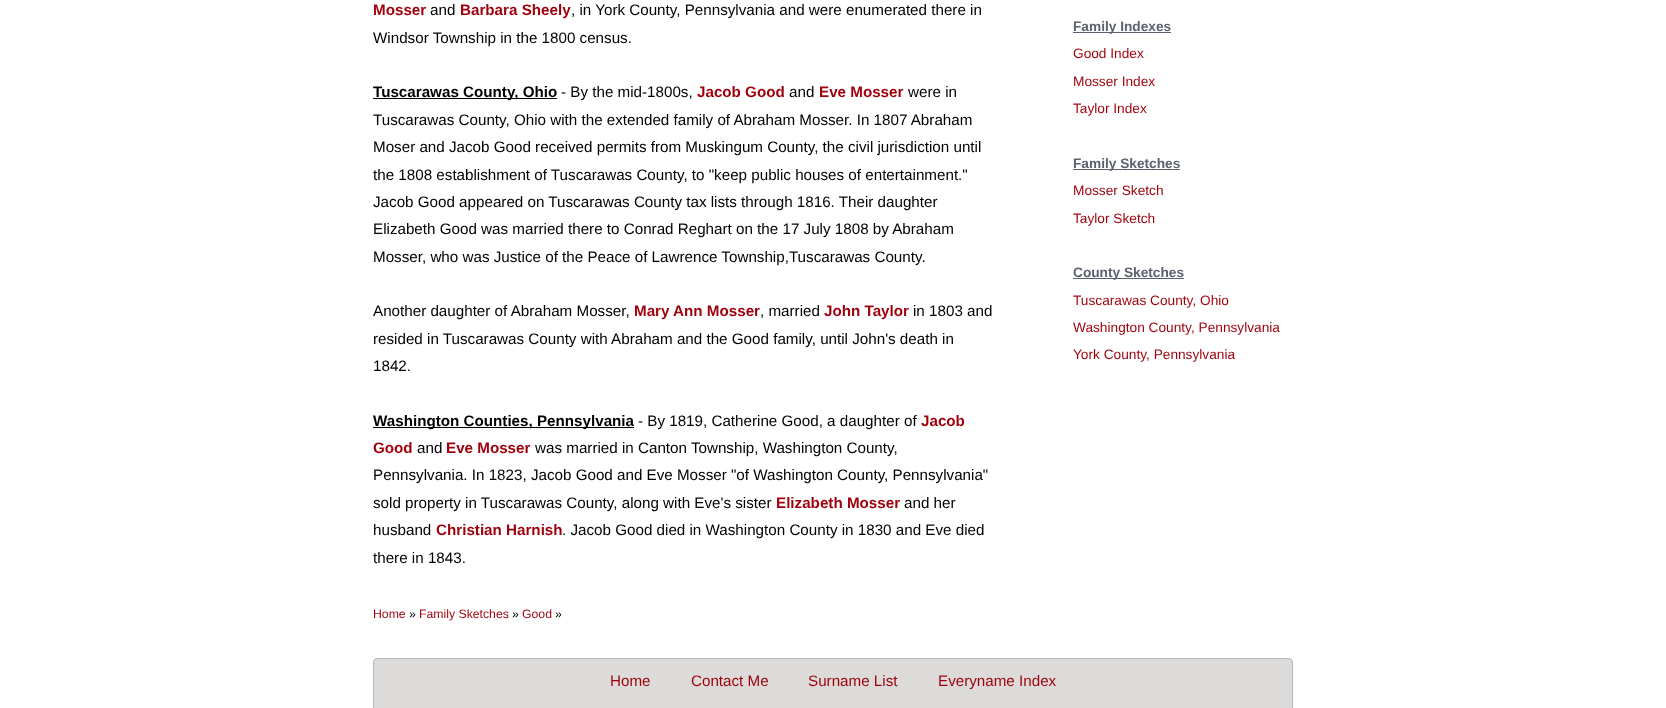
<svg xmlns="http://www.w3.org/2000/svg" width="1666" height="708">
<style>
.a{font:bold 15.2px Liberation Sans;fill:#9e000c}
.b{font:15.2px Liberation Sans;fill:#000}
.c{font:bold 15.2px Liberation Sans;fill:#000}
.d{font:12.25px Liberation Sans;fill:#9e000c}
.e{font:12.25px Liberation Sans;fill:#000}
.f{font:bold 13.7px Liberation Sans;fill:#5c616d}
.g{font:13.7px Liberation Sans;fill:#9e000c}
.h{font:15.2px Liberation Sans;fill:#9e000c}
</style>
<rect width="100%" height="100%" fill="#fff"/>
<path fill="#000" d="M373 98h184v1H373z"/>
<path fill="#000" d="M373 427h261v1H373z"/>
<path fill="#5c616d" d="M1073 32h98v1H1073z"/>
<path fill="#5c616d" d="M1073 169h107v1H1073z"/>
<path fill="#5c616d" d="M1073 278h111v1H1073z"/>
<path fill="#dad8d7" d="M375 658h1v1H375z"/>
<path fill="#c2bfbd" d="M376 658h1v1H376z"/>
<path fill="#b9b6b4" d="M377 658h1v1H377z"/>
<path fill="#dad8d7" d="M373 660h1v1H373z"/>
<path fill="#cac8c6" d="M374 659h1v1H374z"/>
<path fill="#c7c5c3" d="M375 659h1v1H375z"/>
<path fill="#d7d5d3" d="M376 659h1v1H376z"/>
<path fill="#dddbd9" d="M377 659h1v4H377z"/>
<path fill="#c2bfbd" d="M373 661h1v1H373z"/>
<path fill="#c7c5c3" d="M374 660h1v1H374z"/>
<path fill="#dddbd9" d="M375 660h2v3H375z"/>
<path fill="#d7d5d3" d="M374 661h1v1H374z"/>
<path fill="#b9b6b4" d="M373 662h1v46H373z"/>
<path fill="#dddbd9" d="M374 662h1v1H374z"/>
<path fill="#b9b6b4" d="M378 658h911v1H378z"/>
<path fill="#c2bfbd" d="M1289 658h1v1H1289z"/>
<path fill="#dad8d7" d="M1290 658h1v1H1290z"/>
<path fill="#dddbd9" d="M1288 659h1v4H1288z"/>
<path fill="#d7d5d3" d="M1289 659h1v1H1289z"/>
<path fill="#c7c5c3" d="M1290 659h1v1H1290z"/>
<path fill="#cac8c6" d="M1291 659h1v1H1291z"/>
<path fill="#dddbd9" d="M1289 660h2v3H1289z"/>
<path fill="#c7c5c3" d="M1291 660h1v1H1291z"/>
<path fill="#dad8d7" d="M1292 660h1v1H1292z"/>
<path fill="#d7d5d3" d="M1291 661h1v1H1291z"/>
<path fill="#c2bfbd" d="M1292 661h1v1H1292z"/>
<path fill="#dddbd9" d="M1291 662h1v1H1291z"/>
<path fill="#b9b6b4" d="M1292 662h1v46H1292z"/>
<path fill="#dddbd9" d="M378 659h910v4H378z"/>
<path fill="#dddbd9" d="M374 663h918v45H374z"/>
<text class="a" x="373" y="15">Mosser</text>
<text class="b" x="430" y="15">and</text>
<text class="a" x="460" y="15">Barbara Sheely</text>
<text class="b" x="571" y="15">, in York County, Pennsylvania and were enumerated there in</text>
<text class="b" x="373" y="43">Windsor Township in the 1800 census.</text>
<text class="c" x="373" y="97">Tuscarawas County, Ohio</text>
<text class="b" x="561" y="97">- By the mid-1800s,</text>
<text class="a" x="697" y="97">Jacob Good</text>
<text class="b" x="789" y="97">and</text>
<text class="a" x="819" y="97">Eve Mosser</text>
<text class="b" x="908" y="97">were in</text>
<text class="b" x="373" y="125">Tuscarawas County, Ohio with the extended family of Abraham Mosser. In 1807 Abraham</text>
<text class="b" x="373" y="152">Moser and Jacob Good received permits from Muskingum County, the civil jurisdiction until</text>
<text class="b" x="373" y="180">the 1808 establishment of Tuscarawas County, to "keep public houses of entertainment."</text>
<text class="b" x="373" y="207">Jacob Good appeared on Tuscarawas County tax lists through 1816. Their daughter</text>
<text class="b" x="373" y="234">Elizabeth Good was married there to Conrad Reghart on the 17 July 1808 by Abraham</text>
<text class="b" x="373" y="262">Mosser, who was Justice of the Peace of Lawrence Township,Tuscarawas County.</text>
<text class="b" x="373" y="316">Another daughter of Abraham Mosser,</text>
<text class="a" x="634" y="316">Mary Ann Mosser</text>
<text class="b" x="760" y="316">, married</text>
<text class="a" x="824" y="316">John Taylor</text>
<text class="b" x="913" y="316">in 1803 and</text>
<text class="b" x="373" y="344">resided in Tuscarawas County with Abraham and the Good family, until John's death in</text>
<text class="b" x="373" y="371">1842.</text>
<text class="c" x="373" y="426">Washington Counties, Pennsylvania</text>
<text class="b" x="638" y="426">- By 1819, Catherine Good, a daughter of</text>
<text class="a" x="921" y="426">Jacob</text>
<text class="a" x="373" y="453">Good</text>
<text class="b" x="417" y="453">and</text>
<text class="a" x="446" y="453">Eve Mosser</text>
<text class="b" x="535" y="453">was married in Canton Township, Washington County,</text>
<text class="b" x="373" y="480">Pennsylvania. In 1823, Jacob Good and Eve Mosser "of Washington County, Pennsylvania"</text>
<text class="b" x="373" y="508">sold property in Tuscarawas County, along with Eve's sister</text>
<text class="a" x="776" y="508">Elizabeth Mosser</text>
<text class="b" x="904" y="508">and her</text>
<text class="b" x="373" y="535">husband</text>
<text class="a" x="436" y="535">Christian Harnish</text>
<text class="b" x="562" y="535">. Jacob Good died in Washington County in 1830 and Eve died</text>
<text class="b" x="373" y="563">there in 1843.</text>
<text class="d" x="373" y="618">Home</text>
<text class="e" x="409" y="618">»</text>
<text class="d" x="419" y="618">Family Sketches</text>
<text class="e" x="512" y="618">»</text>
<text class="d" x="522" y="618">Good</text>
<text class="e" x="555" y="618">»</text>
<text class="f" x="1073" y="31">Family Indexes</text>
<text class="g" x="1073" y="58">Good Index</text>
<text class="g" x="1073" y="86">Mosser Index</text>
<text class="g" x="1073" y="113">Taylor Index</text>
<text class="f" x="1073" y="168">Family Sketches</text>
<text class="g" x="1073" y="195">Mosser Sketch</text>
<text class="g" x="1073" y="223">Taylor Sketch</text>
<text class="f" x="1073" y="277">County Sketches</text>
<text class="g" x="1073" y="305">Tuscarawas County, Ohio</text>
<text class="g" x="1073" y="332">Washington County, Pennsylvania</text>
<text class="g" x="1073" y="359">York County, Pennsylvania</text>
<text class="h" x="610" y="686">Home</text>
<text class="h" x="691" y="686">Contact Me</text>
<text class="h" x="808" y="686">Surname List</text>
<text class="h" x="938" y="686">Everyname Index</text>
</svg>
